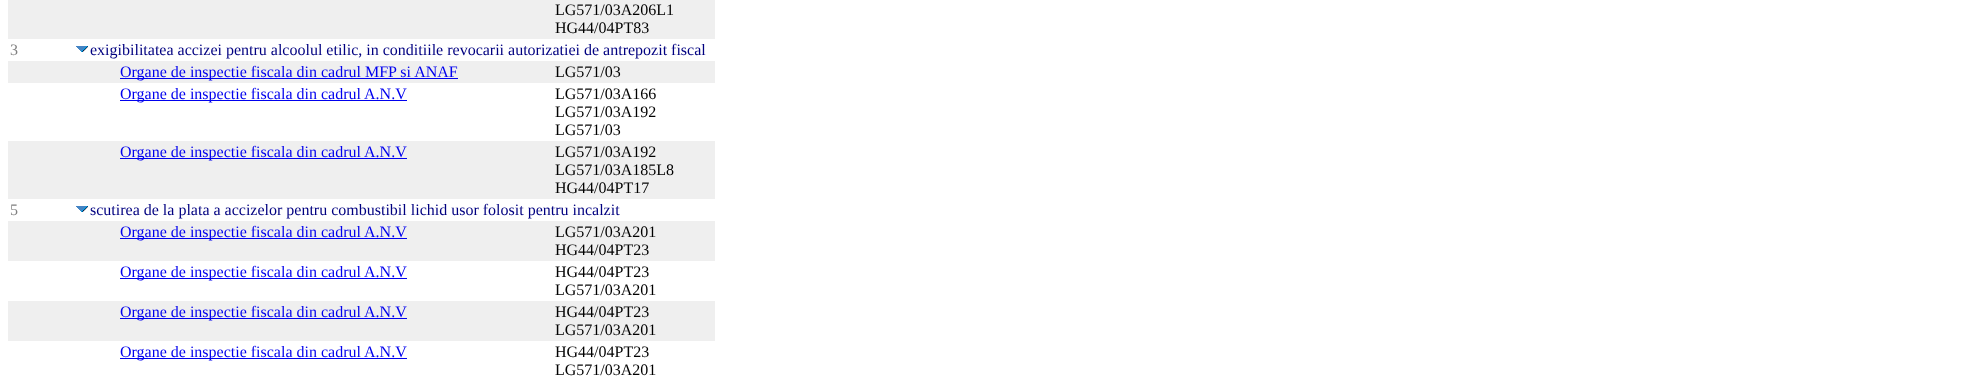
<svg xmlns="http://www.w3.org/2000/svg" width="1968" height="377">
<style>
.a{font:16px Liberation Serif;fill:#000}
.b{font:16px Liberation Serif;fill:#808080}
.c{font:16px Liberation Serif;fill:#000080}
.d{font:16px Liberation Serif;fill:#00e}
</style>
<rect width="100%" height="100%" fill="#fff"/>
<path fill="#efefef" d="M8 0h707v39H8z"/>
<image href="1.png" x="76" y="46" width="12" height="6"/>
<path fill="#efefef" d="M8 61h707v22H8z"/>
<path fill="#00e" d="M120 78h338v1H120z"/>
<path fill="#00e" d="M120 100h287v1H120z"/>
<path fill="#efefef" d="M8 141h707v58H8z"/>
<path fill="#00e" d="M120 158h287v1H120z"/>
<image href="1.png" x="76" y="206" width="12" height="6"/>
<path fill="#efefef" d="M8 221h707v40H8z"/>
<path fill="#00e" d="M120 238h287v1H120z"/>
<path fill="#00e" d="M120 278h287v1H120z"/>
<path fill="#efefef" d="M8 301h707v40H8z"/>
<path fill="#00e" d="M120 318h287v1H120z"/>
<path fill="#00e" d="M120 358h287v1H120z"/>
<text class="a" x="555" y="15">LG571/03A206L1</text>
<text class="a" x="555" y="33">HG44/04PT83</text>
<text class="b" x="10" y="55">3</text>
<text class="c" x="90" y="55">exigibilitatea accizei pentru alcoolul etilic, in conditiile revocarii autorizatiei de antrepozit fiscal</text>
<text class="d" x="120" y="77">Organe de inspectie fiscala din cadrul MFP si ANAF</text>
<text class="a" x="555" y="77">LG571/03</text>
<text class="d" x="120" y="99">Organe de inspectie fiscala din cadrul A.N.V</text>
<text class="a" x="555" y="99">LG571/03A166</text>
<text class="a" x="555" y="117">LG571/03A192</text>
<text class="a" x="555" y="135">LG571/03</text>
<text class="d" x="120" y="157">Organe de inspectie fiscala din cadrul A.N.V</text>
<text class="a" x="555" y="157">LG571/03A192</text>
<text class="a" x="555" y="175">LG571/03A185L8</text>
<text class="a" x="555" y="193">HG44/04PT17</text>
<text class="b" x="10" y="215">5</text>
<text class="c" x="90" y="215">scutirea de la plata a accizelor pentru combustibil lichid usor folosit pentru incalzit</text>
<text class="d" x="120" y="237">Organe de inspectie fiscala din cadrul A.N.V</text>
<text class="a" x="555" y="237">LG571/03A201</text>
<text class="a" x="555" y="255">HG44/04PT23</text>
<text class="d" x="120" y="277">Organe de inspectie fiscala din cadrul A.N.V</text>
<text class="a" x="555" y="277">HG44/04PT23</text>
<text class="a" x="555" y="295">LG571/03A201</text>
<text class="d" x="120" y="317">Organe de inspectie fiscala din cadrul A.N.V</text>
<text class="a" x="555" y="317">HG44/04PT23</text>
<text class="a" x="555" y="335">LG571/03A201</text>
<text class="d" x="120" y="357">Organe de inspectie fiscala din cadrul A.N.V</text>
<text class="a" x="555" y="357">HG44/04PT23</text>
<text class="a" x="555" y="375">LG571/03A201</text>
</svg>
